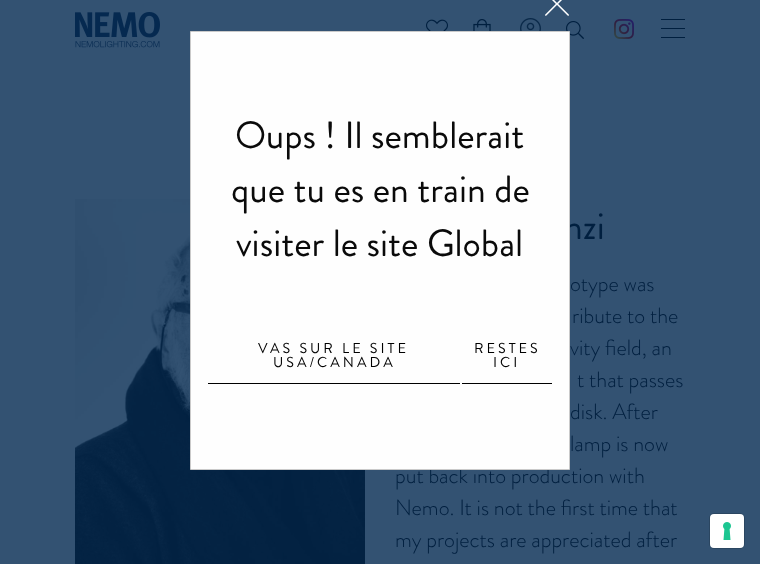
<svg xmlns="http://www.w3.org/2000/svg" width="760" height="564">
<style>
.a{font:38px Brandon Grotesque;fill:#001f3f}
.b{font:300 22px Brandon Grotesque;fill:#001f3f}
.c{font:14.4px Brandon Grotesque;letter-spacing:3px;fill:#000}
.d{font:38px Brandon Grotesque;fill:#0a0a0a}
</style>
<rect width="100%" height="100%" fill="#335272"/>
<image href="1.png" x="545" y="0" width="24" height="16"/>
<image href="2.png" x="75" y="12" width="85" height="36"/>
<image href="3.png" x="426" y="19" width="22" height="12"/>
<image href="4.png" x="473" y="19" width="18" height="12"/>
<image href="5.png" x="520" y="18" width="21" height="13"/>
<image href="6.png" x="566" y="21" width="18" height="18"/>
<image href="7.png" x="614" y="19" width="20" height="20"/>
<path fill="#001f3f" d="M661 19h24v1H661z"/>
<path fill="#001f3f" d="M661 28h24v1H661z"/>
<path fill="#001f3f" d="M661 37h24v1H661z"/>
<image href="8.png" x="75" y="199" width="290" height="365"/>
<rect fill="none" stroke="#2b4661" x="709.5" y="513.5" width="35" height="35" rx="4.5"/>
<rect fill="#fff" x="710" y="514" width="34" height="34" rx="4"/>
<image href="9.png" x="723" y="522" width="8" height="18"/>
<text class="a" x="564" y="239">nzi</text>
<text class="b" x="570" y="291">otype was</text>
<text class="b" x="572" y="323">ribute to the</text>
<text class="b" x="570" y="355">vity field, an</text>
<text class="b" x="577" y="387">t that passes</text>
<text class="b" x="570" y="419">disk. After</text>
<text class="b" x="570" y="451">lamp is now</text>
<text class="b" x="395" y="483">put back into production with</text>
<path fill="#fefefe" stroke="#cacaca" d="M190.5 31.5h379v438H190.5z"/>
<path fill="#000" d="M462 383h90v1H462z"/>
<text class="c" x="493" y="367">ICI</text>
<text class="c" x="474" y="353">RESTES</text>
<path fill="#000" d="M208 383h252v1H208z"/>
<text class="c" x="273" y="367">USA/CANADA</text>
<text class="c" x="258" y="353">VAS SUR LE SITE</text>
<text class="d" x="236" y="256">visiter le site Global</text>
<text class="d" x="231" y="202">que tu es en train de</text>
<text class="d" x="235" y="148">Oups ! Il semblerait</text>
<text class="b" x="395" y="515">Nemo. It is not the first time that</text>
<text class="b" x="395" y="547">my projects are appreciated after</text>
</svg>
